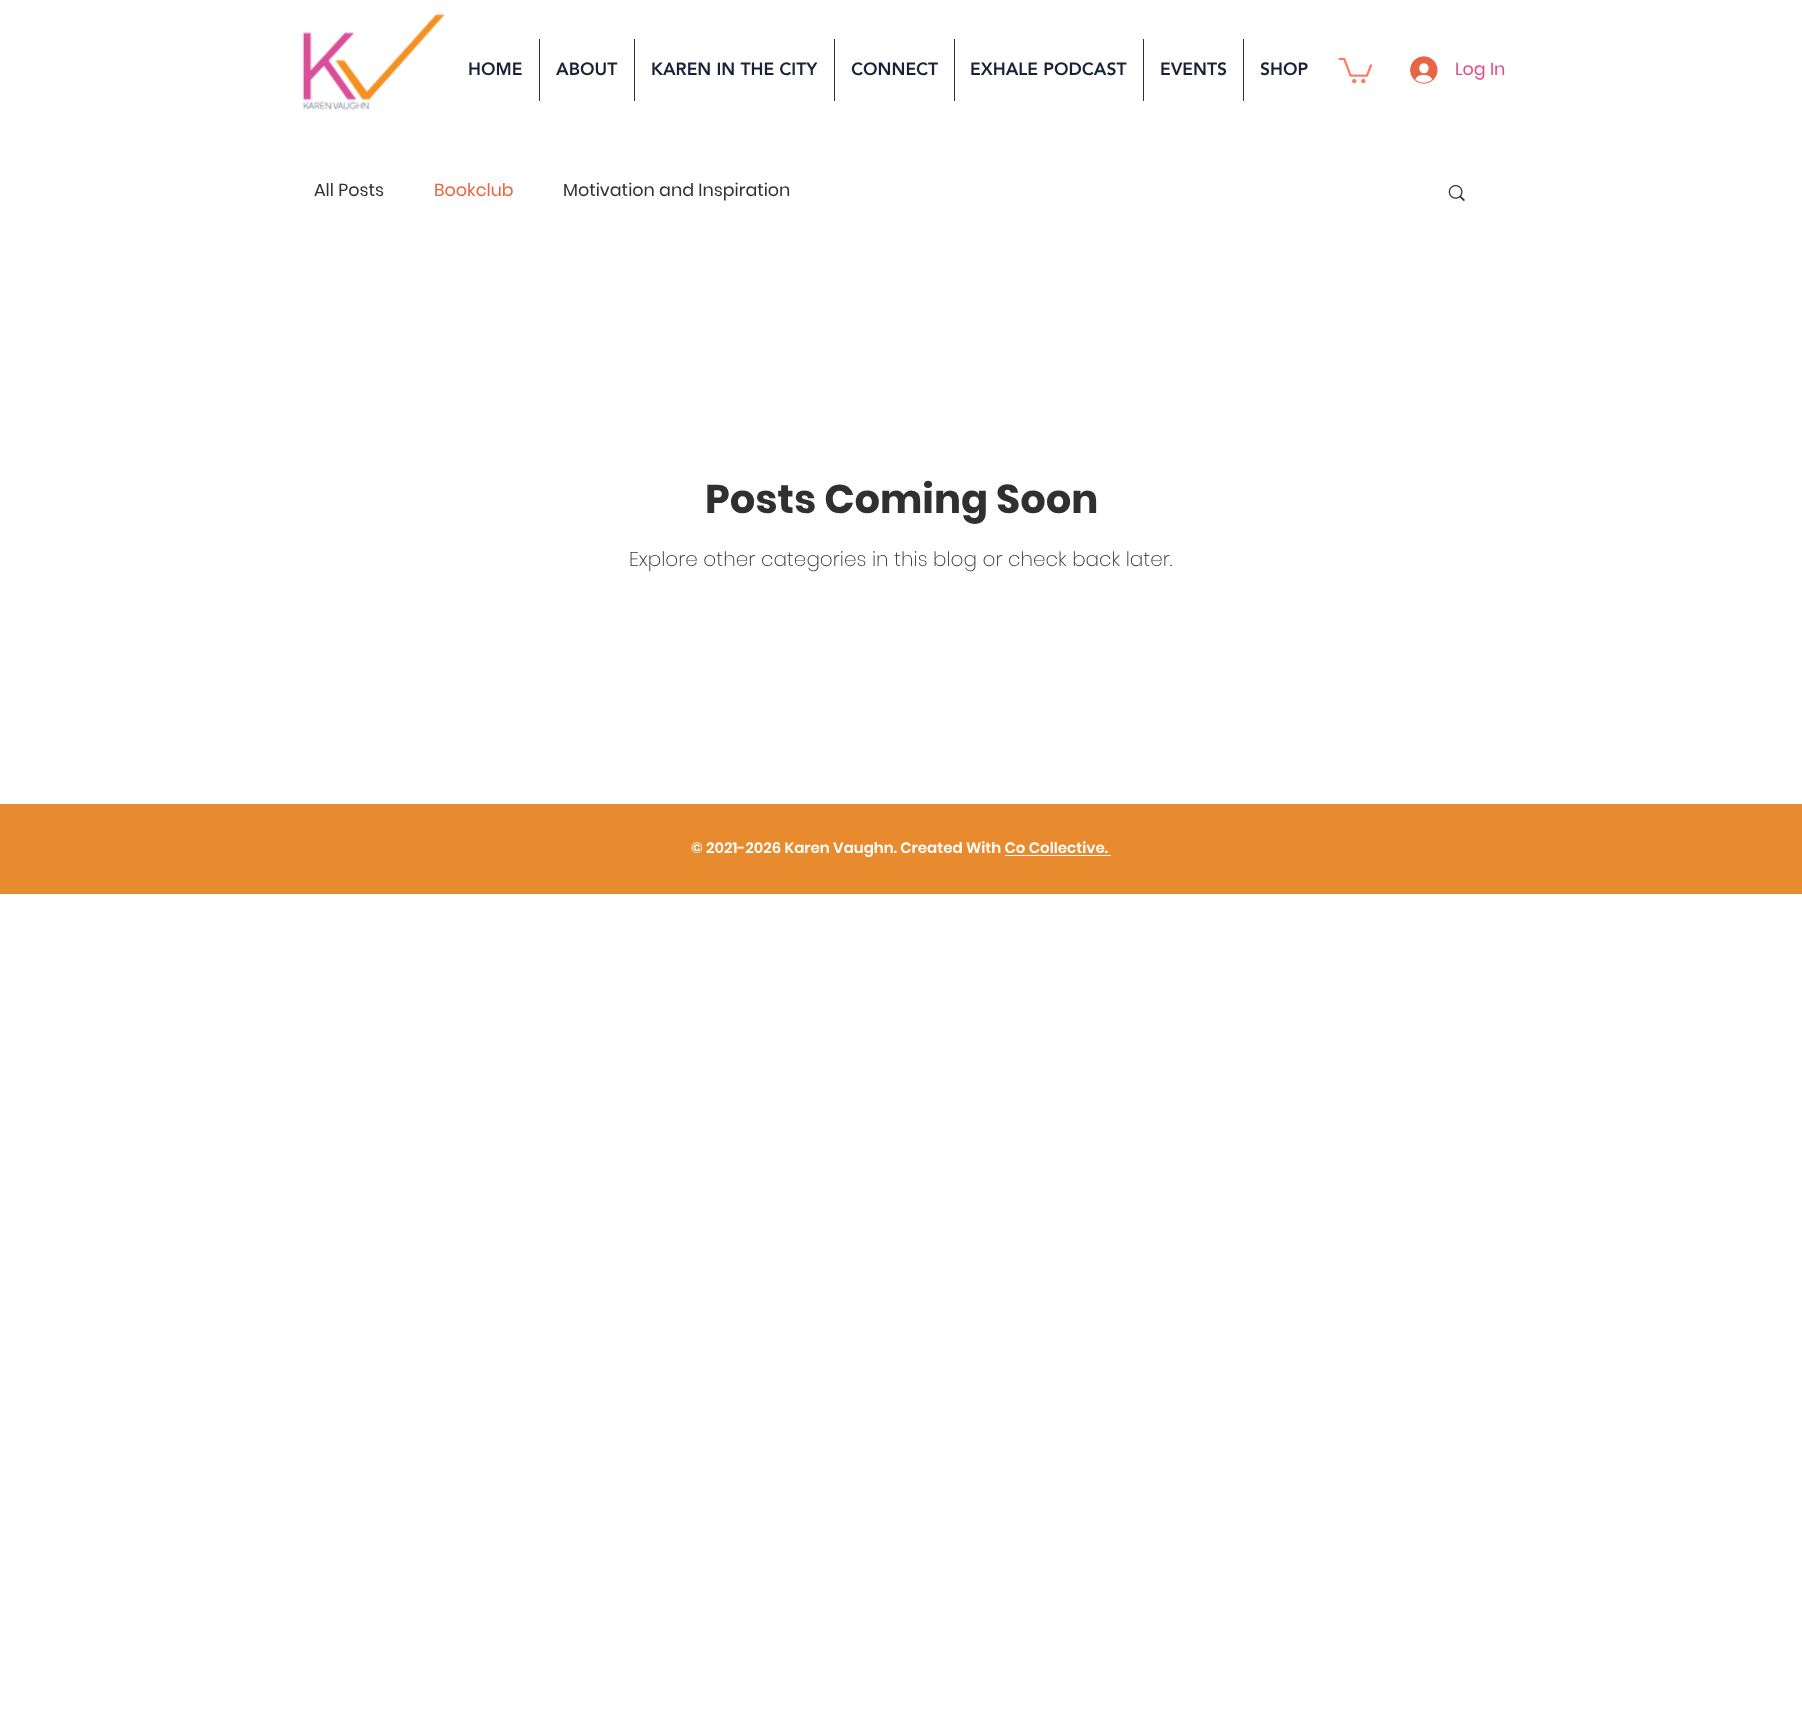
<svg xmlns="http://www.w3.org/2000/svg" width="1802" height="1729">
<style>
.a{font:900 17.5px 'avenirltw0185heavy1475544';fill:#192236}
.b{font:17.5px Poppins;fill:#e74988}
.c{font:17.5px Poppins;fill:#303030}
.d{font:17.5px Poppins;fill:#e76543}
.e{font:bold 40px Poppins;fill:#303030}
.f{font:200 20px Poppins;fill:#303030}
.g{font:600 15px Poppins;fill:#fff}
</style>
<rect width="100%" height="100%" fill="#fff"/>
<image href="1.png" x="302" y="13" width="143" height="97"/>
<path fill="#303030" d="M539 39h1v62H539z"/>
<path fill="#303030" d="M634 39h1v62H634z"/>
<path fill="#303030" d="M834 39h1v62H834z"/>
<path fill="#303030" d="M954 39h1v62H954z"/>
<path fill="#303030" d="M1143 39h1v62H1143z"/>
<path fill="#303030" d="M1243 39h1v62H1243z"/>
<image href="2.png" x="1338" y="57" width="35" height="27"/>
<image href="3.png" x="1410" y="56" width="28" height="28"/>
<image href="4.png" x="1448" y="185" width="17" height="17"/>
<path fill="#e88b2e" d="M0 804h1802v90H0z"/>
<path fill="#fff" d="M1005 855h106v1H1005z"/>
<text class="a" x="468" y="75">HOME</text>
<text class="a" x="556" y="75">ABOUT</text>
<text class="a" x="651" y="75">KAREN IN THE CITY</text>
<text class="a" x="851" y="75">CONNECT</text>
<text class="a" x="970" y="75">EXHALE PODCAST</text>
<text class="a" x="1160" y="75">EVENTS</text>
<text class="a" x="1260" y="75">SHOP</text>
<text class="b" x="1455" y="75">Log In</text>
<text class="c" x="314" y="196">All Posts</text>
<text class="d" x="434" y="196">Bookclub</text>
<text class="c" x="563" y="196">Motivation and Inspiration</text>
<text class="e" x="705" y="513">Posts Coming Soon</text>
<text class="f" x="629" y="566">Explore other categories in this blog or check back later.</text>
<text class="g" x="691" y="853">© 2021-2026 Karen Vaughn. Created With Co Collective.</text>
</svg>
